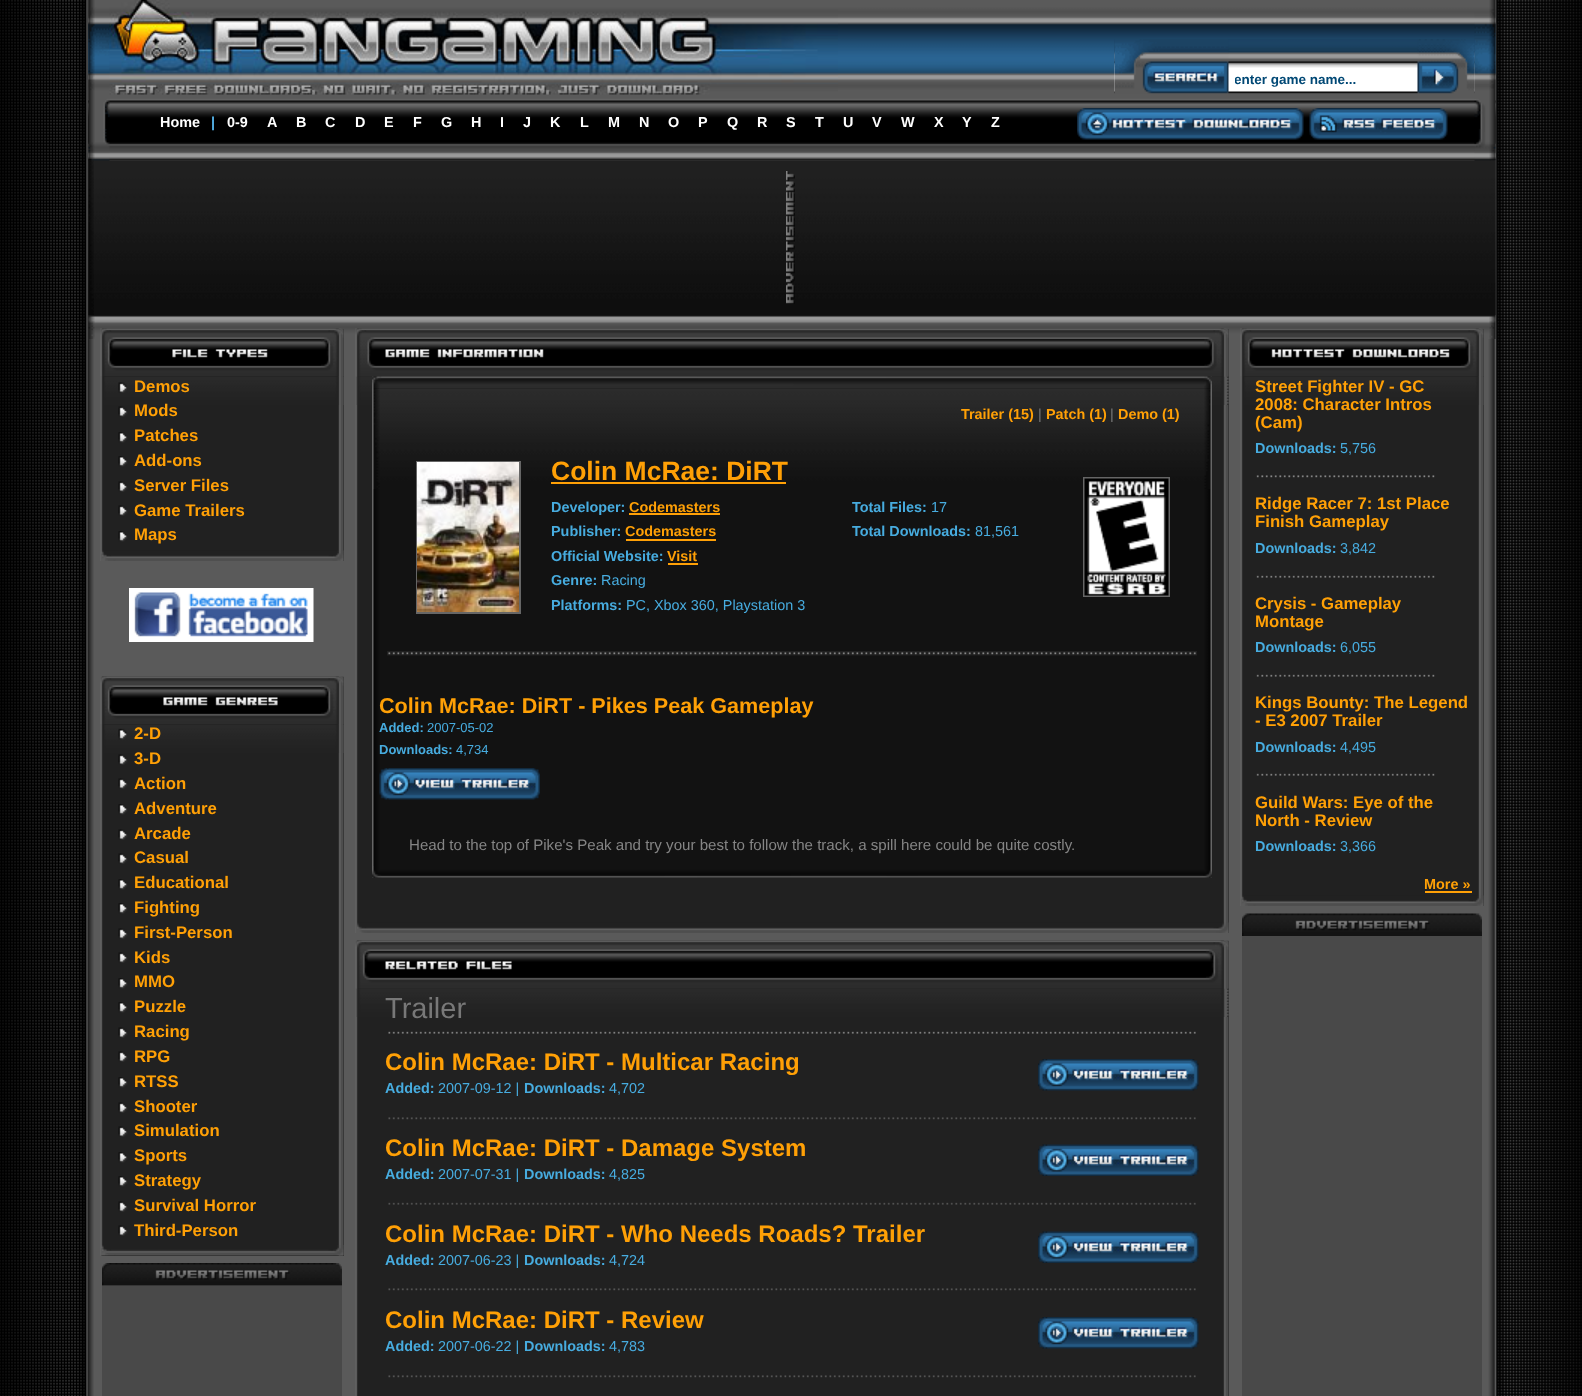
<svg xmlns="http://www.w3.org/2000/svg" width="1582" height="1396">
<style>
.a{font:bold 13.5px Liberation Sans;fill:#004875}
.b{font:bold 14.4px Liberation Sans;fill:#fff}
.c{font:bold 14.4px Liberation Sans;fill:#54b2e8}
.d{font:bold 16.75px Liberation Sans;fill:#ffa006}
.e{font:bold 14.4px Liberation Sans;fill:#ffa006}
.f{font:14.4px Liberation Sans;fill:#787878}
.g{font:bold 26.5px Liberation Sans;fill:#ffa006}
.h{font:bold 14.4px Liberation Sans;fill:#47acdf}
.i{font:14.4px Liberation Sans;fill:#47acdf}
.j{font:bold 21.6px Liberation Sans;fill:#ffa006}
.k{font:bold 13px Liberation Sans;fill:#47acdf}
.l{font:13px Liberation Sans;fill:#47acdf}
.m{font:15.1px Liberation Sans;fill:#858585}
.n{font:29px Liberation Sans;fill:#787878}
.o{font:bold 24px Liberation Sans;fill:#ffa006}
</style>
<defs>
<clipPath id="clip1"><path d="M1235 72h181v15H1235z"/></clipPath>
</defs>
<rect width="100%" height="100%" fill="#fff"/>
<image href="1.png" x="0" y="0" width="1582" height="1396"/>
<image href="2.png" x="88" y="0" width="1408" height="161"/>
<image href="11.png" x="88" y="160" width="1408" height="155"/>
<image href="3.png" x="88" y="0" width="22" height="161"/>
<image href="4.png" x="109" y="0" width="729" height="95"/>
<image href="6.png" x="1114" y="39" width="361" height="55"/>
<image href="5.png" x="1474" y="0" width="22" height="161"/>
<image href="7.png" x="1114" y="39" width="115" height="55"/>
<image href="8.png" x="1417" y="39" width="58" height="55"/>
<image href="9.png" x="1077" y="108" width="227" height="32"/>
<image href="10.png" x="1309" y="108" width="139" height="32"/>
<image href="12.png" x="88" y="160" width="6" height="155"/>
<image href="13.png" x="786" y="171" width="9" height="133"/>
<image href="14.png" x="1491" y="160" width="5" height="155"/>
<image href="15.png" x="88" y="315" width="1408" height="24"/>
<path fill="#222" d="M343 329h1v232H343z"/>
<image href="16.png" x="100" y="328" width="244" height="233"/>
<image href="17.png" x="100" y="328" width="244" height="48"/>
<image href="18.png" x="104" y="376" width="240" height="29"/>
<image href="19.png" x="118" y="382" width="9" height="11"/>
<image href="20.png" x="118" y="406" width="10" height="11"/>
<image href="21.png" x="118" y="432" width="10" height="11"/>
<image href="21.png" x="118" y="456" width="10" height="11"/>
<image href="20.png" x="118" y="481" width="10" height="11"/>
<image href="20.png" x="118" y="505" width="10" height="11"/>
<image href="21.png" x="118" y="531" width="10" height="11"/>
<image href="22.png" x="101" y="550" width="243" height="11"/>
<image href="23.png" x="129" y="588" width="185" height="54"/>
<path fill="#222" d="M101 677h243v579H101z"/>
<image href="24.png" x="100" y="676" width="244" height="580"/>
<image href="25.png" x="100" y="676" width="244" height="48"/>
<image href="18.png" x="104" y="724" width="240" height="29"/>
<image href="26.png" x="118" y="728" width="9" height="12"/>
<image href="20.png" x="118" y="754" width="10" height="11"/>
<image href="20.png" x="118" y="778" width="10" height="11"/>
<image href="21.png" x="118" y="804" width="10" height="11"/>
<image href="20.png" x="118" y="829" width="10" height="11"/>
<image href="20.png" x="118" y="853" width="10" height="11"/>
<image href="21.png" x="118" y="879" width="10" height="11"/>
<image href="21.png" x="118" y="903" width="10" height="11"/>
<image href="20.png" x="118" y="928" width="10" height="11"/>
<image href="20.png" x="118" y="952" width="10" height="11"/>
<image href="21.png" x="118" y="978" width="10" height="11"/>
<image href="21.png" x="118" y="1002" width="10" height="11"/>
<image href="20.png" x="118" y="1027" width="10" height="11"/>
<image href="20.png" x="118" y="1051" width="10" height="11"/>
<image href="21.png" x="118" y="1077" width="10" height="11"/>
<image href="20.png" x="118" y="1102" width="10" height="11"/>
<image href="20.png" x="118" y="1126" width="10" height="11"/>
<image href="21.png" x="118" y="1152" width="10" height="11"/>
<image href="21.png" x="118" y="1176" width="10" height="11"/>
<image href="20.png" x="118" y="1201" width="10" height="11"/>
<image href="20.png" x="118" y="1225" width="10" height="11"/>
<image href="27.png" x="101" y="1245" width="243" height="11"/>
<image href="28.png" x="102" y="1263" width="240" height="23"/>
<path fill="#494949" d="M102 1286h240v110H102z"/>
<path fill="#222" d="M1228 329h1v604H1228z"/>
<image href="29.png" x="355" y="328" width="874" height="605"/>
<image href="31.png" x="356" y="376" width="873" height="29"/>
<image href="32.png" x="372" y="376" width="840" height="502"/>
<image href="30.png" x="355" y="328" width="874" height="49"/>
<image href="34.png" x="373" y="388" width="838" height="101"/>
<image href="33.png" x="372" y="376" width="840" height="13"/>
<path fill="none" stroke="#666" stroke-width="2" d="M417 462h103v151H417z"/>
<image href="35.png" x="417" y="462" width="102" height="150"/>
<path fill="#ffa006" d="M551 482h235v2H551z"/>
<path fill="#ffa006" d="M629 513h91v2H629z"/>
<path fill="#ffa006" d="M626 539h90v2H626z"/>
<path fill="#ffa006" d="M668 563h30v2H668z"/>
<path fill="none" stroke="#666" stroke-width="2" d="M1084 478h85v118H1084z"/>
<image href="36.png" x="1084" y="478" width="85" height="118"/>
<image href="37.png" x="387" y="651" width="810" height="5"/>
<image href="38.png" x="379" y="768" width="161" height="32"/>
<image href="39.png" x="372" y="866" width="840" height="12"/>
<image href="40.png" x="357" y="922" width="872" height="11"/>
<path fill="#222" d="M1228 941h1v455H1228z"/>
<image href="41.png" x="355" y="940" width="874" height="456"/>
<image href="31.png" x="356" y="988" width="873" height="29"/>
<image href="42.png" x="355" y="940" width="874" height="49"/>
<image href="43.png" x="388" y="1031" width="808" height="3"/>
<image href="44.png" x="1038" y="1059" width="161" height="32"/>
<image href="45.png" x="388" y="1117" width="808" height="3"/>
<image href="46.png" x="1038" y="1144" width="161" height="32"/>
<image href="47.png" x="388" y="1202" width="808" height="3"/>
<image href="46.png" x="1038" y="1231" width="161" height="32"/>
<image href="45.png" x="388" y="1288" width="808" height="3"/>
<image href="44.png" x="1038" y="1317" width="161" height="32"/>
<image href="45.png" x="388" y="1375" width="808" height="3"/>
<path fill="#222" d="M1483 329h1v577H1483z"/>
<image href="48.png" x="1240" y="328" width="244" height="578"/>
<image href="49.png" x="1240" y="328" width="244" height="48"/>
<image href="18.png" x="1244" y="376" width="240" height="29"/>
<image href="50.png" x="1256" y="475" width="179" height="3"/>
<image href="51.png" x="1256" y="575" width="179" height="3"/>
<image href="51.png" x="1256" y="674" width="179" height="3"/>
<image href="51.png" x="1256" y="773" width="179" height="3"/>
<path fill="#ffa006" d="M1425 891h47v2H1425z"/>
<image href="52.png" x="1241" y="895" width="243" height="11"/>
<image href="53.png" x="1242" y="913" width="240" height="23"/>
<path fill="#494949" d="M1242 936h240v460H1242z"/>
<g clip-path="url(#clip1)">
<text class="a" x="1234" y="84">enter game name...</text>
</g>
<text class="b" x="160" y="127">Home</text>
<text class="c" x="211" y="127">|</text>
<text class="b" x="227" y="127">0-9</text>
<text class="b" x="267" y="127">A</text>
<text class="b" x="296" y="127">B</text>
<text class="b" x="325" y="127">C</text>
<text class="b" x="355" y="127">D</text>
<text class="b" x="384" y="127">E</text>
<text class="b" x="413" y="127">F</text>
<text class="b" x="441" y="127">G</text>
<text class="b" x="471" y="127">H</text>
<text class="b" x="500" y="127">I</text>
<text class="b" x="523" y="127">J</text>
<text class="b" x="550" y="127">K</text>
<text class="b" x="580" y="127">L</text>
<text class="b" x="608" y="127">M</text>
<text class="b" x="639" y="127">N</text>
<text class="b" x="668" y="127">O</text>
<text class="b" x="698" y="127">P</text>
<text class="b" x="727" y="127">Q</text>
<text class="b" x="757" y="127">R</text>
<text class="b" x="786" y="127">S</text>
<text class="b" x="815" y="127">T</text>
<text class="b" x="843" y="127">U</text>
<text class="b" x="872" y="127">V</text>
<text class="b" x="901" y="127">W</text>
<text class="b" x="934" y="127">X</text>
<text class="b" x="962" y="127">Y</text>
<text class="b" x="991" y="127">Z</text>
<text class="d" x="134" y="392">Demos</text>
<text class="d" x="134" y="416">Mods</text>
<text class="d" x="134" y="441">Patches</text>
<text class="d" x="134" y="466">Add-ons</text>
<text class="d" x="134" y="491">Server Files</text>
<text class="d" x="134" y="516">Game Trailers</text>
<text class="d" x="134" y="540">Maps</text>
<text class="d" x="134" y="739">2-D</text>
<text class="d" x="134" y="764">3-D</text>
<text class="d" x="134" y="789">Action</text>
<text class="d" x="134" y="814">Adventure</text>
<text class="d" x="134" y="839">Arcade</text>
<text class="d" x="134" y="863">Casual</text>
<text class="d" x="134" y="888">Educational</text>
<text class="d" x="134" y="913">Fighting</text>
<text class="d" x="134" y="938">First-Person</text>
<text class="d" x="134" y="963">Kids</text>
<text class="d" x="134" y="987">MMO</text>
<text class="d" x="134" y="1012">Puzzle</text>
<text class="d" x="134" y="1037">Racing</text>
<text class="d" x="134" y="1062">RPG</text>
<text class="d" x="134" y="1087">RTSS</text>
<text class="d" x="134" y="1112">Shooter</text>
<text class="d" x="134" y="1136">Simulation</text>
<text class="d" x="134" y="1161">Sports</text>
<text class="d" x="134" y="1186">Strategy</text>
<text class="d" x="134" y="1211">Survival Horror</text>
<text class="d" x="134" y="1236">Third-Person</text>
<text class="e" x="961" y="419">Trailer (15)</text>
<text class="f" x="1038" y="419">|</text>
<text class="e" x="1046" y="419">Patch (1)</text>
<text class="f" x="1110" y="419">|</text>
<text class="e" x="1118" y="419">Demo (1)</text>
<text class="g" x="551" y="480">Colin McRae: DiRT</text>
<text class="h" x="551" y="512">Developer:</text>
<text class="e" x="629" y="512">Codemasters</text>
<text class="h" x="551" y="536">Publisher:</text>
<text class="e" x="625" y="536">Codemasters</text>
<text class="h" x="551" y="561">Official Website:</text>
<text class="e" x="667" y="561">Visit</text>
<text class="h" x="551" y="585">Genre:</text>
<text class="i" x="601" y="585">Racing</text>
<text class="h" x="551" y="610">Platforms:</text>
<text class="i" x="626" y="610">PC, Xbox 360, Playstation 3</text>
<text class="h" x="852" y="512">Total Files:</text>
<text class="i" x="931" y="512">17</text>
<text class="h" x="852" y="536">Total Downloads:</text>
<text class="i" x="975" y="536">81,561</text>
<text class="j" x="379" y="713">Colin McRae: DiRT - Pikes Peak Gameplay</text>
<text class="k" x="379" y="732">Added:</text>
<text class="l" x="427" y="732">2007-05-02</text>
<text class="k" x="379" y="754">Downloads:</text>
<text class="l" x="456" y="754">4,734</text>
<text class="m" x="409" y="850">Head to the top of Pike's Peak and try your best to follow the track, a spill here could be quite costly.</text>
<text class="n" x="385" y="1018">Trailer</text>
<text class="o" x="385" y="1070">Colin McRae: DiRT - Multicar Racing</text>
<text class="h" x="385" y="1093">Added:</text>
<text class="i" x="438" y="1093">2007-09-12 |</text>
<text class="h" x="524" y="1093">Downloads:</text>
<text class="i" x="609" y="1093">4,702</text>
<text class="o" x="385" y="1156">Colin McRae: DiRT - Damage System</text>
<text class="h" x="385" y="1179">Added:</text>
<text class="i" x="438" y="1179">2007-07-31 |</text>
<text class="h" x="524" y="1179">Downloads:</text>
<text class="i" x="609" y="1179">4,825</text>
<text class="o" x="385" y="1242">Colin McRae: DiRT - Who Needs Roads? Trailer</text>
<text class="h" x="385" y="1265">Added:</text>
<text class="i" x="438" y="1265">2007-06-23 |</text>
<text class="h" x="524" y="1265">Downloads:</text>
<text class="i" x="609" y="1265">4,724</text>
<text class="o" x="385" y="1328">Colin McRae: DiRT - Review</text>
<text class="h" x="385" y="1351">Added:</text>
<text class="i" x="438" y="1351">2007-06-22 |</text>
<text class="h" x="524" y="1351">Downloads:</text>
<text class="i" x="609" y="1351">4,783</text>
<text class="d" x="1255" y="392">Street Fighter IV - GC</text>
<text class="d" x="1255" y="410">2008: Character Intros</text>
<text class="d" x="1255" y="428">(Cam)</text>
<text class="h" x="1255" y="453">Downloads:</text>
<text class="i" x="1340" y="453">5,756</text>
<text class="d" x="1255" y="509">Ridge Racer 7: 1st Place</text>
<text class="d" x="1255" y="527">Finish Gameplay</text>
<text class="h" x="1255" y="553">Downloads:</text>
<text class="i" x="1340" y="553">3,842</text>
<text class="d" x="1255" y="609">Crysis - Gameplay</text>
<text class="d" x="1255" y="627">Montage</text>
<text class="h" x="1255" y="652">Downloads:</text>
<text class="i" x="1340" y="652">6,055</text>
<text class="d" x="1255" y="708">Kings Bounty: The Legend</text>
<text class="d" x="1255" y="726">- E3 2007 Trailer</text>
<text class="h" x="1255" y="752">Downloads:</text>
<text class="i" x="1340" y="752">4,495</text>
<text class="d" x="1255" y="808">Guild Wars: Eye of the</text>
<text class="d" x="1255" y="826">North - Review</text>
<text class="h" x="1255" y="851">Downloads:</text>
<text class="i" x="1340" y="851">3,366</text>
<text class="e" x="1424" y="889">More »</text>
</svg>
